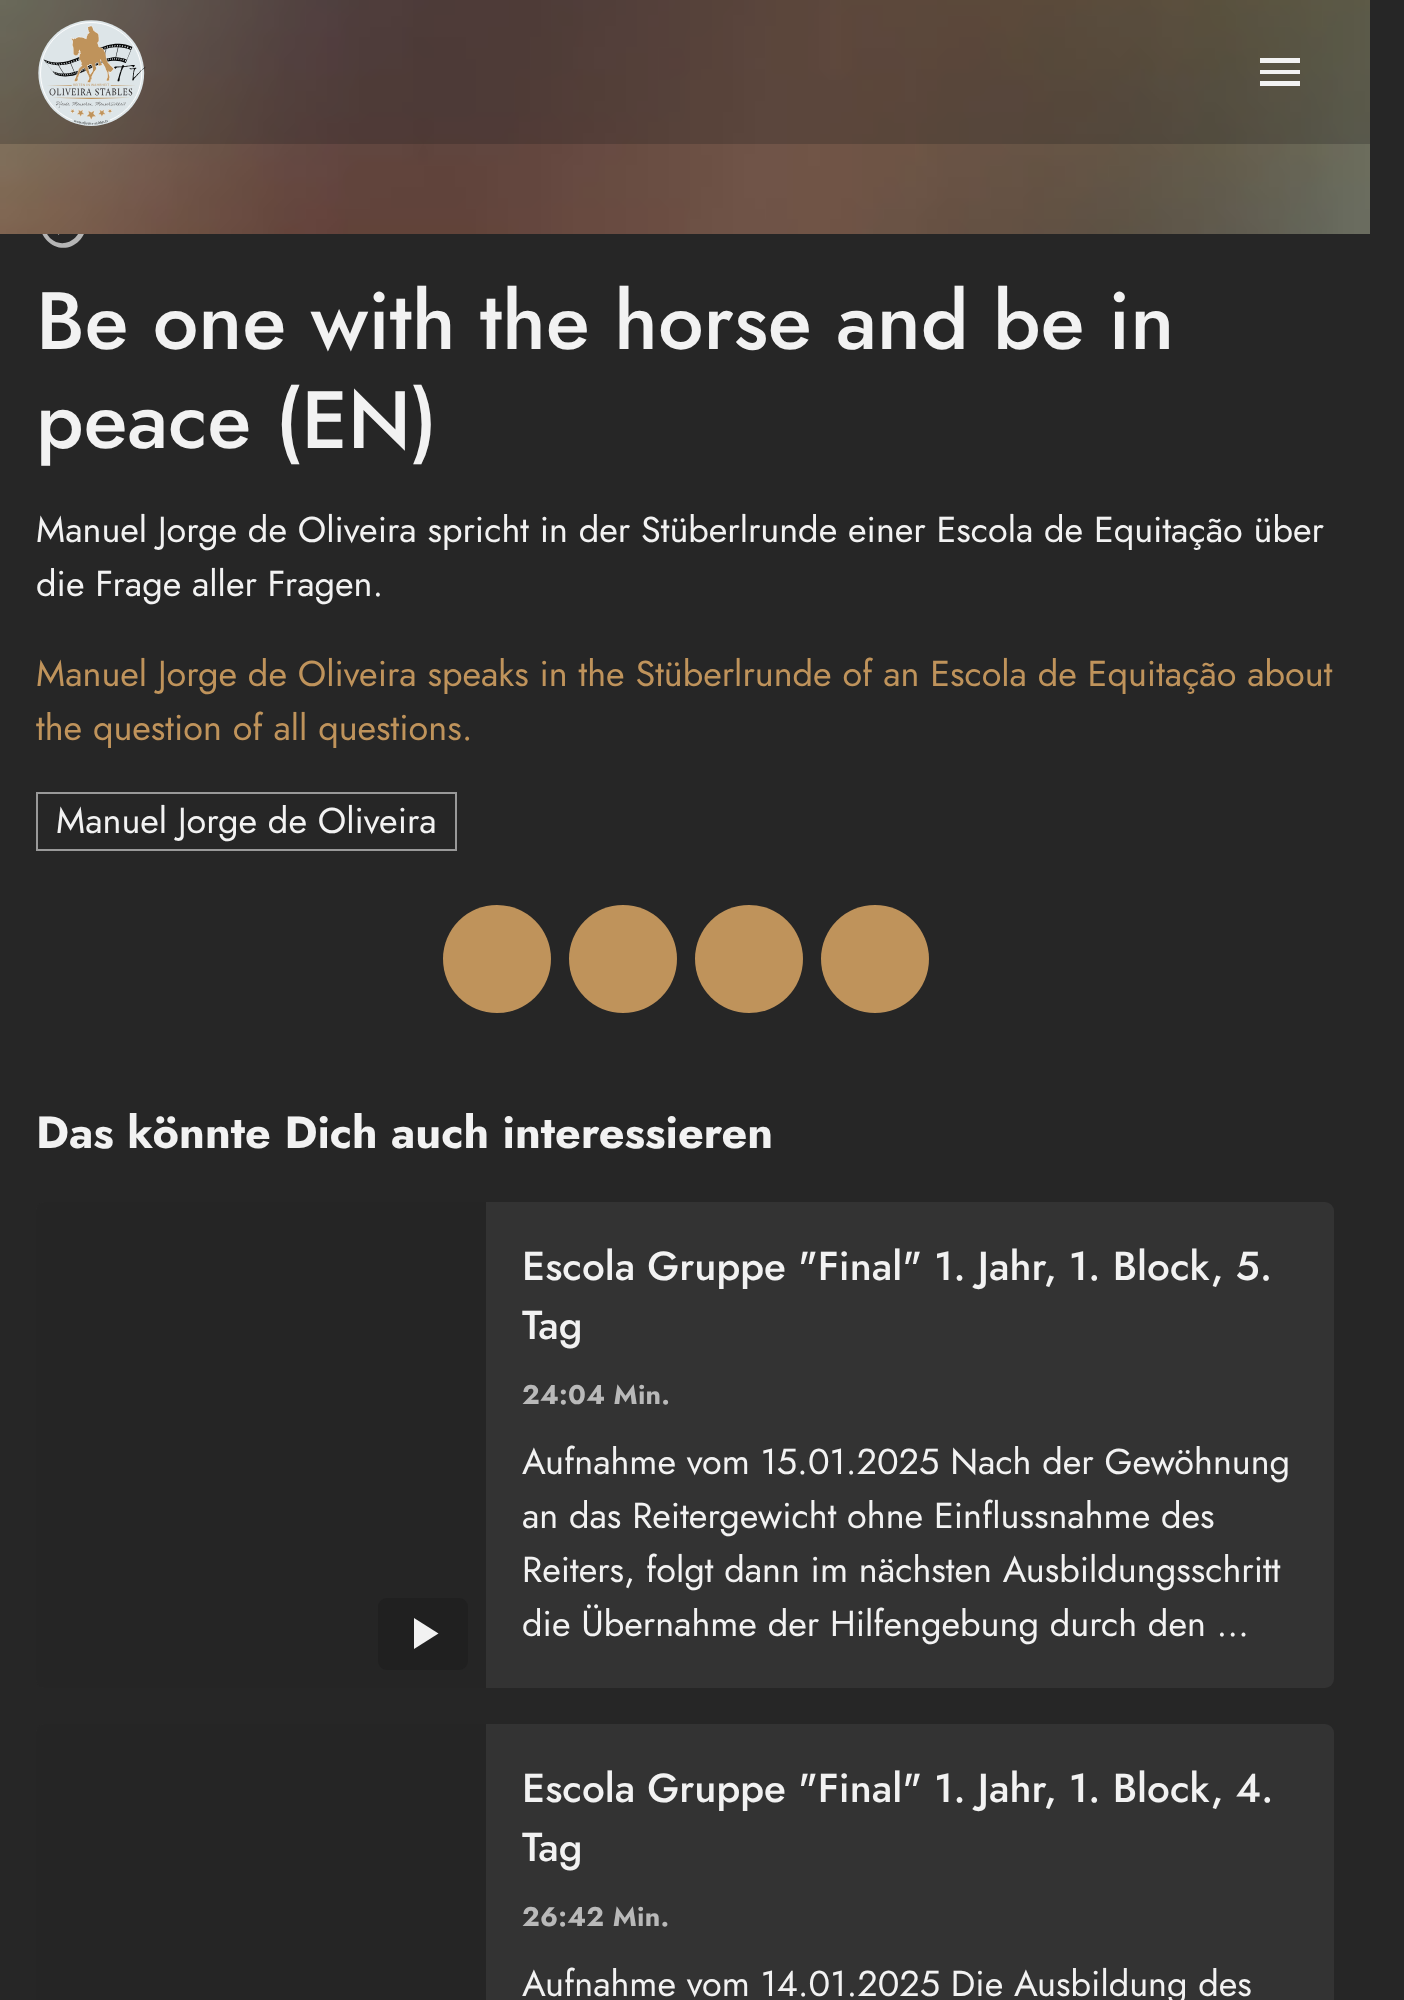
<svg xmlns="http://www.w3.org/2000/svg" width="1404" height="2000">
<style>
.a{font:500 81px Jost;fill:#f2f2f2}
.b{font:36px Jost;fill:#f2f2f2}
.c{font:36px Jost;fill:#bf935b}
.d{font:bold 45px Jost;fill:#f2f2f2}
.e{font:500 40.5px Jost;fill:#f2f2f2}
.f{font:bold 27px Jost;letter-spacing:0.25px;fill:#b9b9b9}
</style>
<rect width="100%" height="100%" fill="#262626"/>
<path fill="#b5b5b5" d="M50 238c17 16 42-9 26-26c-17-16-42 9-26 26zm-3-29c21-21 53 11 32 32c-21 21-53-11-32-32zm11 26v-20l14 10z"/>
<image href="2.png" x="0" y="0" width="1370" height="234"/>
<path fill="#1a1a1a40" d="M0 0h1370v144H0z"/>
<image href="1.png" x="38" y="20" width="108" height="106"/>
<path fill="#f2f2f2" d="M1260 58h40v5h-40zm0 16v-4h40v4zm0 12v-5h40v5z"/>
<path fill="none" stroke="#999" stroke-width="2" d="M37 793h419v57H37z"/>
<circle fill="#bf935b" cx="497" cy="959" r="54"/>
<circle fill="#bf935b" cx="623" cy="959" r="54"/>
<circle fill="#bf935b" cx="749" cy="959" r="54"/>
<circle fill="#bf935b" cx="875" cy="959" r="54"/>
<rect fill="#333" x="36" y="1202" width="1298" height="486" rx="9"/>
<path fill="#252525" d="M45 1202h441v486h-441c-5 0-9-4-9-9v-468c0-5 4-9 9-9z"/>
<rect fill="#202020" x="378" y="1598" width="90" height="72" rx="9"/>
<path fill="#f2f2f2" d="M414 1618l24.5 15.5l-24.5 15.5z"/>
<rect fill="#333" x="36" y="1724" width="1298" height="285" rx="9"/>
<path fill="#252525" d="M45 1724h441v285h-441c-5 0-9-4-9-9v-267c0-5 4-9 9-9z"/>
<text class="a" x="36" y="349">Be one with the horse and be in</text>
<text class="a" x="36" y="448">peace (EN)</text>
<text class="b" x="36" y="542">Manuel Jorge de Oliveira spricht in der Stüberlrunde einer Escola de Equitação über</text>
<text class="b" x="36" y="596">die Frage aller Fragen.</text>
<text class="c" x="36" y="686">Manuel Jorge de Oliveira speaks in the Stüberlrunde of an Escola de Equitação about</text>
<text class="c" x="36" y="740">the question of all questions.</text>
<text class="b" x="56" y="833">Manuel Jorge de Oliveira</text>
<text class="d" x="36" y="1148">Das könnte Dich auch interessieren</text>
<text class="e" x="522" y="1280">Escola Gruppe "Final" 1. Jahr, 1. Block, 5.</text>
<text class="e" x="522" y="1339">Tag</text>
<text class="f" x="522" y="1404">24:04 Min.</text>
<text class="b" x="522" y="1474">Aufnahme vom 15.01.2025 Nach der Gewöhnung</text>
<text class="b" x="522" y="1528">an das Reitergewicht ohne Einflussnahme des</text>
<text class="b" x="522" y="1582">Reiters, folgt dann im nächsten Ausbildungsschritt</text>
<text class="b" x="522" y="1636">die Übernahme der Hilfengebung durch den …</text>
<text class="e" x="522" y="1802">Escola Gruppe "Final" 1. Jahr, 1. Block, 4.</text>
<text class="e" x="522" y="1861">Tag</text>
<text class="f" x="522" y="1926">26:42 Min.</text>
<text class="b" x="522" y="1996">Aufnahme vom 14.01.2025 Die Ausbildung des</text>
</svg>
